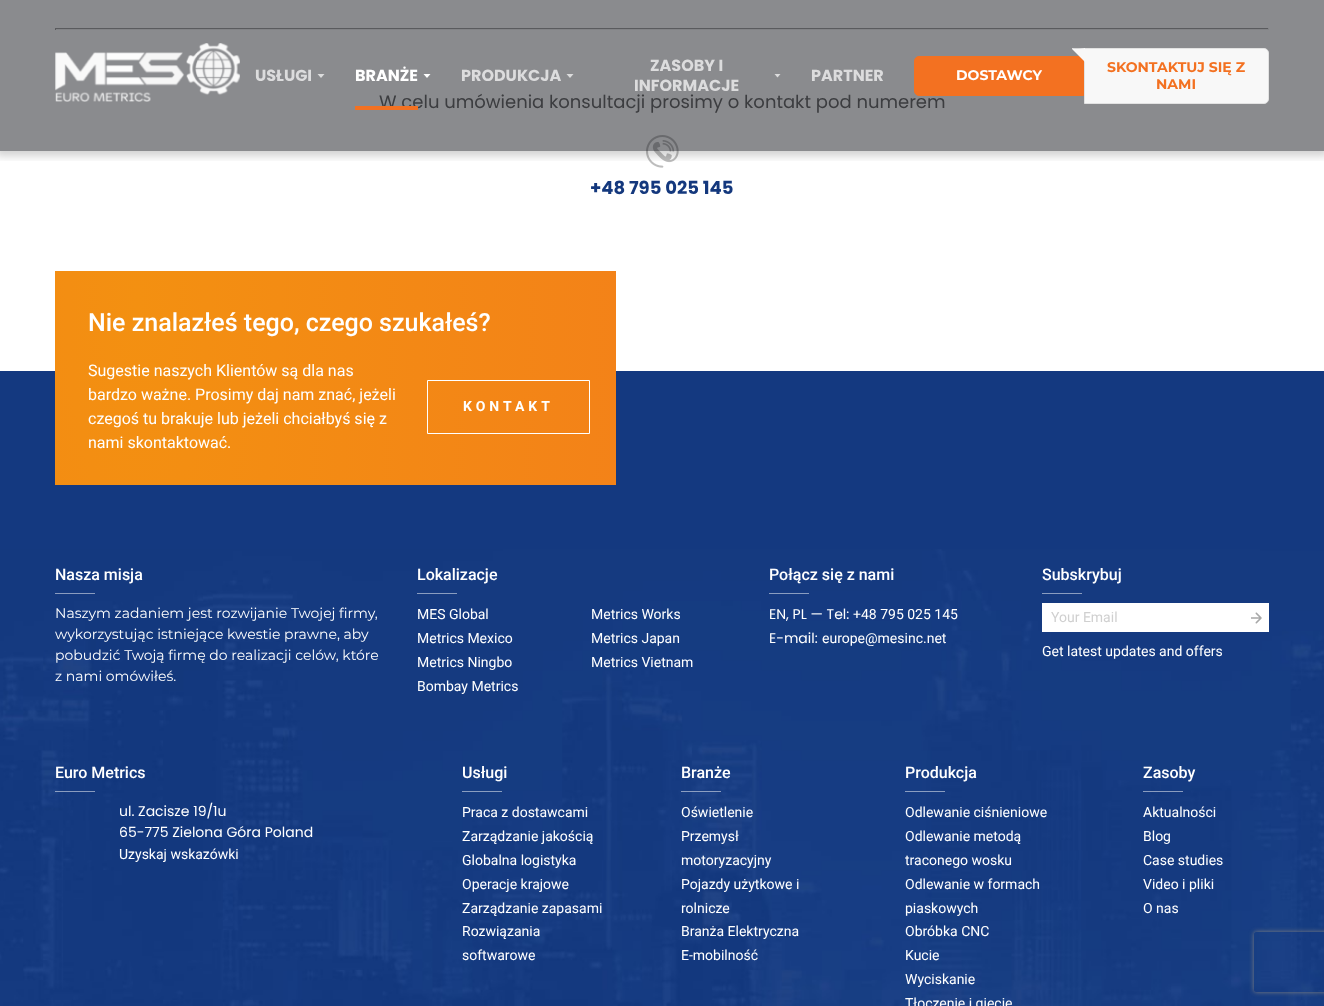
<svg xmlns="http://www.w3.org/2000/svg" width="1324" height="1006">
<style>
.a{font:18px Poppins;fill:#626262}
.b{font:bold 14px Montserrat;fill:#f37121}
.c{font:bold 14px Montserrat;fill:#fff}
.d{font:bold 16px Poppins;fill:#dcdcdd}
.e{font:bold 16px Poppins;fill:#fff}
.f{font:bold 18px Poppins;fill:#14387d}
.g{font:500 25px Roboto;fill:#fff}
.h{font:16px Roboto;fill:#fff}
.i{font:bold 14px Roboto;letter-spacing:4px;fill:#fff}
.j{font:500 16px Roboto;fill:#fff}
.k{font:14px Montserrat;fill:#fff}
.l{font:14px Roboto;fill:#fff}
.m{font:14px Poppins;fill:#fff}
.n{font:14px Roboto;fill:#d0d0d0}
</style>
<defs>
<clipPath id="clip1"><path d="M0 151h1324v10H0z"/></clipPath>
<radialGradient id="g1" gradientUnits="userSpaceOnUse" cx="0" cy="0" r="1" gradientTransform="matrix(1089 0 0 3485 138 300)"><stop offset="0" stop-color="#f39011"/><stop offset="1" stop-color="#f37121"/></radialGradient>
<clipPath id="clip2"><path d="M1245 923h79v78h-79zm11 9h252c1 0 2 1 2 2v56c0 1-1 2-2 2h-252c-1 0-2-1-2-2v-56c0-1 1-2 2-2z" clip-rule="evenodd"/></clipPath>
</defs>
<rect width="100%" height="100%" fill="#fff"/>
<path fill="#9f9f9f" d="M55 28h1214v1H55z"/>
<path fill="#eee" d="M1268 28h1v2H1268z"/>
<path fill="#eee" d="M55 29h1214v1H55z"/>
<path fill="#9f9f9f" d="M55 28h1v2H55z"/>
<image href="2.png" x="646" y="135" width="33" height="33"/>
<g clip-path="url(#clip1)">
<path fill="#0000002e" filter="blur(4px)" d="M-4 -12h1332v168H-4z"/>
</g>
<path fill="#143980" d="M0 371h1324v178H0z"/>
<image href="3.png" x="0" y="549" width="1324" height="457"/>
<path fill="url(#g1)" d="M55 271h561v214H55z"/>
<path fill="none" stroke="#fff" d="M427.5 380.5h162v53H427.5z"/>
<path fill="#8a9cbf" d="M55 593h40v1H55z"/>
<path fill="#8a9dc0" d="M417 593h40v1H417z"/>
<path fill="#8a9dc0" d="M769 593h40v1H769z"/>
<path fill="#8a9dc0" d="M1042 593h40v1H1042z"/>
<path fill="#fff" d="M1042 603h227v29H1042z"/>
<image href="4.png" x="1251" y="612" width="11" height="12"/>
<path fill="#ffffff80" d="M55 791h40v1H55z"/>
<path fill="#8a9ec0" d="M462 791h40v1H462z"/>
<path fill="#ffffff80" d="M681 791h40v1H681z"/>
<path fill="#ffffff80" d="M905 791h40v1H905z"/>
<path fill="#8a9cbf" d="M1143 791h40v1H1143z"/>
<g clip-path="url(#clip2)">
<rect fill="#808080" filter="blur(2.5px)" x="1254" y="932" width="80" height="60" rx="2"/>
</g>
<text class="a" x="379" y="108">W celu umówienia konsultacji prosimy o kontakt pod numerem</text>
<path fill="#15181e80" d="M0 0h1324v151H0z"/>
<path fill="#f8f8f8" stroke="#e2e2e2" d="M1084.5 48.5h179.5c2.5 0 4.5 2 4.5 4.5v46c0 2.5-2 4.5-4.5 4.5h-179.5z"/>
<path fill="#e2e2e2" d="M1072 48h13l-13 1z"/>
<path fill="#f37121" stroke="#f37121" d="M919 56.5h164.5v39h-164.5c-2.5 0-4.5-2-4.5-4.5v-30c0-2.5 2-4.5 4.5-4.5z"/>
<path fill="#f8f8f8" d="M1085 48v14l-13-13z"/>
<text class="b" x="1156" y="89">NAMI</text>
<text class="b" x="1107" y="72">SKONTAKTUJ SIĘ Z</text>
<text class="c" x="956" y="80">DOSTAWCY</text>
<text class="d" x="811" y="81">PARTNER</text>
<path fill="#dcdcdd" d="M777.5 77.5l-3-3.5h6z"/>
<text class="d" x="634" y="91">INFORMACJE</text>
<text class="d" x="650" y="71">ZASOBY I</text>
<path fill="#dcdcdd" d="M570 78l-3.5-4h7z"/>
<text class="d" x="461" y="81">PRODUKCJA</text>
<path fill="#f37121" d="M355 106h63v4H355z"/>
<path fill="#fff" d="M427 78l-3.5-4h7z"/>
<text class="e" x="355" y="81">BRANŻE</text>
<path fill="#dcdcdd" d="M321 78l-3.5-4h7z"/>
<text class="d" x="255" y="81">USŁUGI</text>
<image href="1.png" x="55" y="43" width="185" height="59"/>
<text class="f" x="590" y="194">+48 795 025 145</text>
<text class="g" x="88" y="331">Nie znalazłeś tego, czego szukałeś?</text>
<text class="h" x="88" y="376">Sugestie naszych Klientów są dla nas</text>
<text class="h" x="88" y="400">bardzo ważne. Prosimy daj nam znać, jeżeli</text>
<text class="h" x="88" y="424">czegoś tu brakuje lub jeżeli chciałbyś się z</text>
<text class="h" x="88" y="448">nami skontaktować.</text>
<text class="i" x="463" y="411">KONTAKT</text>
<text class="j" x="55" y="580">Nasza misja</text>
<text class="k" x="55" y="618">Naszym zadaniem jest rozwijanie Twojej firmy,</text>
<text class="k" x="55" y="639">wykorzystując istniejące kwestie prawne, aby</text>
<text class="k" x="55" y="660">pobudzić Twoją firmę do realizacji celów, które</text>
<text class="k" x="55" y="681">z nami omówiłeś.</text>
<text class="j" x="417" y="580">Lokalizacje</text>
<text class="l" x="417" y="619">MES Global</text>
<text class="l" x="417" y="643">Metrics Mexico</text>
<text class="l" x="417" y="667">Metrics Ningbo</text>
<text class="l" x="417" y="691">Bombay Metrics</text>
<text class="l" x="591" y="619">Metrics Works</text>
<text class="l" x="591" y="643">Metrics Japan</text>
<text class="l" x="591" y="667">Metrics Vietnam</text>
<text class="j" x="769" y="580">Połącz się z nami</text>
<text class="m" x="769" y="619">EN, PL — Tel:</text>
<text class="l" x="853" y="619">+48 795 025 145</text>
<text class="m" x="769" y="643">E-mail:</text>
<text class="l" x="822" y="643">europe@mesinc.net</text>
<text class="j" x="1042" y="580">Subskrybuj</text>
<text class="n" x="1051" y="622">Your Email</text>
<text class="l" x="1042" y="656">Get latest updates and offers</text>
<text class="j" x="55" y="778">Euro Metrics</text>
<text class="m" x="119" y="816">ul. Zacisze 19/1u</text>
<text class="m" x="119" y="837">65-775 Zielona Góra Poland</text>
<text class="l" x="119" y="859">Uzyskaj wskazówki</text>
<text class="j" x="462" y="778">Usługi</text>
<text class="l" x="462" y="817">Praca z dostawcami</text>
<text class="l" x="462" y="841">Zarządzanie jakością</text>
<text class="l" x="462" y="865">Globalna logistyka</text>
<text class="l" x="462" y="889">Operacje krajowe</text>
<text class="l" x="462" y="913">Zarządzanie zapasami</text>
<text class="l" x="462" y="936">Rozwiązania</text>
<text class="l" x="462" y="960">softwarowe</text>
<text class="j" x="681" y="778">Branże</text>
<text class="l" x="681" y="817">Oświetlenie</text>
<text class="l" x="681" y="841">Przemysł</text>
<text class="l" x="681" y="865">motoryzacyjny</text>
<text class="l" x="681" y="889">Pojazdy użytkowe i</text>
<text class="l" x="681" y="913">rolnicze</text>
<text class="l" x="681" y="936">Branża Elektryczna</text>
<text class="l" x="681" y="960">E-mobilność</text>
<text class="j" x="905" y="778">Produkcja</text>
<text class="l" x="905" y="817">Odlewanie ciśnieniowe</text>
<text class="l" x="905" y="841">Odlewanie metodą</text>
<text class="l" x="905" y="865">traconego wosku</text>
<text class="l" x="905" y="889">Odlewanie w formach</text>
<text class="l" x="905" y="913">piaskowych</text>
<text class="l" x="905" y="936">Obróbka CNC</text>
<text class="l" x="905" y="960">Kucie</text>
<text class="l" x="905" y="984">Wyciskanie</text>
<text class="l" x="905" y="1008">Tłoczenie i gięcie</text>
<text class="j" x="1143" y="778">Zasoby</text>
<text class="l" x="1143" y="817">Aktualności</text>
<text class="l" x="1143" y="841">Blog</text>
<text class="l" x="1143" y="865">Case studies</text>
<text class="l" x="1143" y="889">Video i pliki</text>
<text class="l" x="1143" y="913">O nas</text>
</svg>
